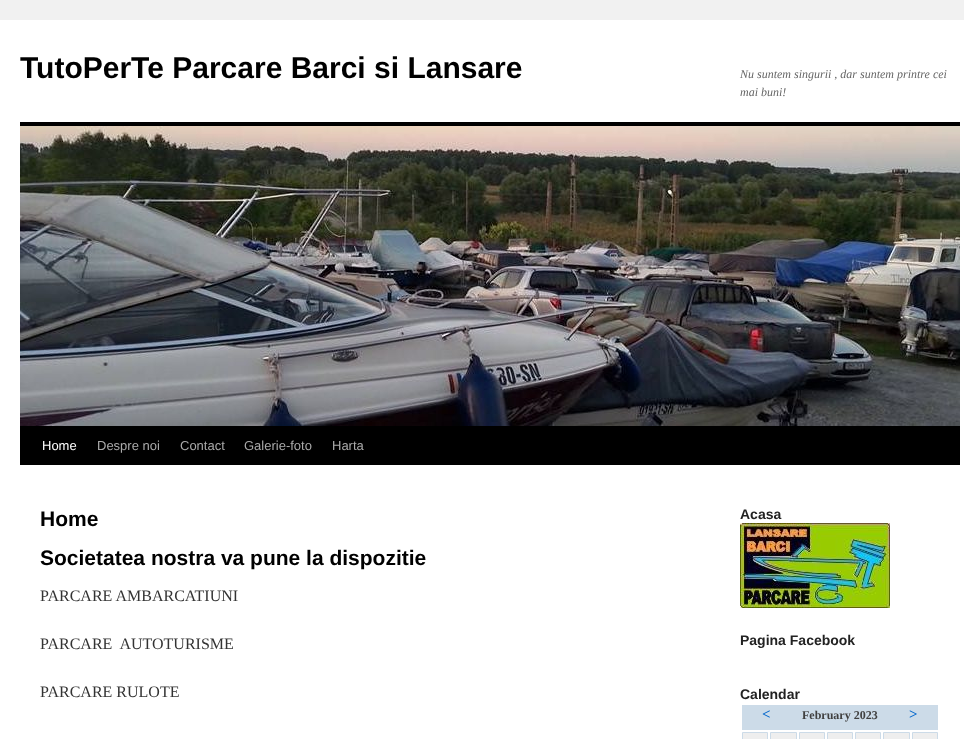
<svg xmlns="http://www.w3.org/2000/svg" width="964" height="739">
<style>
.a{font:bold 30px Liberation Sans;fill:#000}
.b{font:italic 12px Liberation Serif;fill:#666}
.c{font:13px Liberation Sans;fill:#fff}
.d{font:13px Liberation Sans;fill:#aaa}
.e{font:bold 21px Liberation Sans;fill:#000}
.f{font:16px Liberation Serif;fill:#333}
.g{font:bold 14px Liberation Sans;fill:#222}
.h{font:bold 15px Liberation Serif;fill:#06c}
.i{font:bold 12px Liberation Serif;fill:#404040}
</style>
<rect width="100%" height="100%" fill="#f1f1f1"/>
<path fill="#fff" d="M0 20h964v719H0z"/>
<path fill="#000" d="M20 122h940v4H20z"/>
<image href="1.png" x="20" y="126" width="940" height="300"/>
<path fill="#000" d="M20 426h940v39H20z"/>
<image href="2.png" x="740" y="523" width="150" height="85"/>
<path fill="#ccdbe8" d="M742 705h196v25H742z"/>
<path fill="#eee" stroke="#ccdbe8" d="M742.5 732.5h25v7H742.5z"/>
<path fill="#eee" stroke="#ccdbe8" d="M770.5 732.5h26v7H770.5z"/>
<path fill="#eee" stroke="#ccdbe8" d="M799.5 732.5h25v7H799.5z"/>
<path fill="#eee" stroke="#ccdbe8" d="M827.5 732.5h25v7H827.5z"/>
<path fill="#eee" stroke="#ccdbe8" d="M855.5 732.5h25v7H855.5z"/>
<path fill="#eee" stroke="#ccdbe8" d="M883.5 732.5h26v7H883.5z"/>
<path fill="#eee" stroke="#ccdbe8" d="M912.5 732.5h25v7H912.5z"/>
<text class="a" x="20" y="78">TutoPerTe Parcare Barci si Lansare</text>
<text class="b" x="740" y="78">Nu suntem singurii , dar suntem printre cei</text>
<text class="b" x="740" y="96">mai buni!</text>
<text class="c" x="42" y="450">Home</text>
<text class="d" x="97" y="450">Despre noi</text>
<text class="d" x="180" y="450">Contact</text>
<text class="d" x="244" y="450">Galerie-foto</text>
<text class="d" x="332" y="450">Harta</text>
<text class="e" x="40" y="526">Home</text>
<text class="e" x="40" y="565">Societatea nostra va pune la dispozitie</text>
<text class="f" x="40" y="601">PARCARE AMBARCATIUNI</text>
<text class="f" xml:space="preserve" x="40" y="649">PARCARE  AUTOTURISME</text>
<text class="f" x="40" y="697">PARCARE RULOTE</text>
<text class="g" x="740" y="519">Acasa</text>
<text class="g" x="740" y="645">Pagina Facebook</text>
<text class="g" x="740" y="699">Calendar</text>
<text class="h" x="762" y="719">&lt;</text>
<text class="i" x="802" y="719">February 2023</text>
<text class="h" x="909" y="719">&gt;</text>
</svg>
